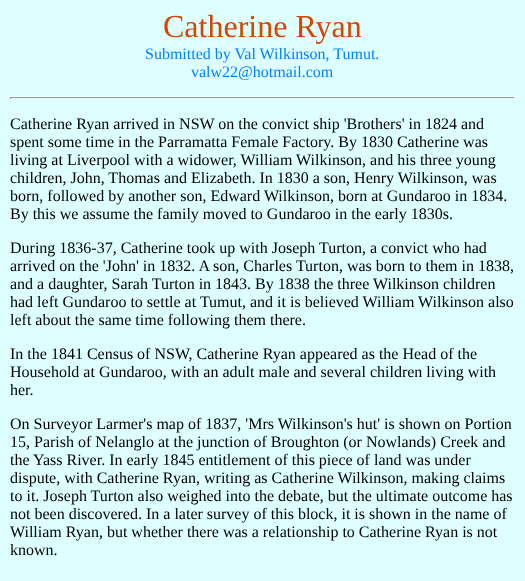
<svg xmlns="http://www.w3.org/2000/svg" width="525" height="581">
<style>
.a{font:32px Liberation Serif;fill:#d74600}
.b{font:16px Liberation Serif;fill:#0080ff}
.c{font:16px Liberation Serif;fill:#000}
</style>
<rect width="100%" height="100%" fill="#dff"/>
<path fill="#9f9f9f" d="M10 97h505v1H10z"/>
<path fill="#eee" d="M514 97h1v2H514z"/>
<path fill="#eee" d="M10 98h505v1H10z"/>
<path fill="#9f9f9f" d="M10 97h1v2H10z"/>
<text class="a" x="163" y="37">Catherine Ryan</text>
<text class="b" x="145" y="59">Submitted by Val Wilkinson, Tumut.</text>
<text class="b" x="191" y="77">valw22@hotmail.com</text>
<text class="c" x="10" y="129">Catherine Ryan arrived in NSW on the convict ship 'Brothers' in 1824 and</text>
<text class="c" x="10" y="147">spent some time in the Parramatta Female Factory. By 1830 Catherine was</text>
<text class="c" x="10" y="165">living at Liverpool with a widower, William Wilkinson, and his three young</text>
<text class="c" x="10" y="183">children, John, Thomas and Elizabeth. In 1830 a son, Henry Wilkinson, was</text>
<text class="c" x="10" y="201">born, followed by another son, Edward Wilkinson, born at Gundaroo in 1834.</text>
<text class="c" x="10" y="219">By this we assume the family moved to Gundaroo in the early 1830s.</text>
<text class="c" x="10" y="253">During 1836-37, Catherine took up with Joseph Turton, a convict who had</text>
<text class="c" x="10" y="271">arrived on the 'John' in 1832. A son, Charles Turton, was born to them in 1838,</text>
<text class="c" x="10" y="289">and a daughter, Sarah Turton in 1843. By 1838 the three Wilkinson children</text>
<text class="c" x="10" y="307">had left Gundaroo to settle at Tumut, and it is believed William Wilkinson also</text>
<text class="c" x="10" y="325">left about the same time following them there.</text>
<text class="c" x="10" y="359">In the 1841 Census of NSW, Catherine Ryan appeared as the Head of the</text>
<text class="c" x="10" y="377">Household at Gundaroo, with an adult male and several children living with</text>
<text class="c" x="10" y="395">her.</text>
<text class="c" x="10" y="429">On Surveyor Larmer's map of 1837, 'Mrs Wilkinson's hut' is shown on Portion</text>
<text class="c" x="10" y="447">15, Parish of Nelanglo at the junction of Broughton (or Nowlands) Creek and</text>
<text class="c" x="10" y="465">the Yass River. In early 1845 entitlement of this piece of land was under</text>
<text class="c" x="10" y="483">dispute, with Catherine Ryan, writing as Catherine Wilkinson, making claims</text>
<text class="c" x="10" y="501">to it. Joseph Turton also weighed into the debate, but the ultimate outcome has</text>
<text class="c" x="10" y="519">not been discovered. In a later survey of this block, it is shown in the name of</text>
<text class="c" x="10" y="537">William Ryan, but whether there was a relationship to Catherine Ryan is not</text>
<text class="c" x="10" y="555">known.</text>
</svg>
